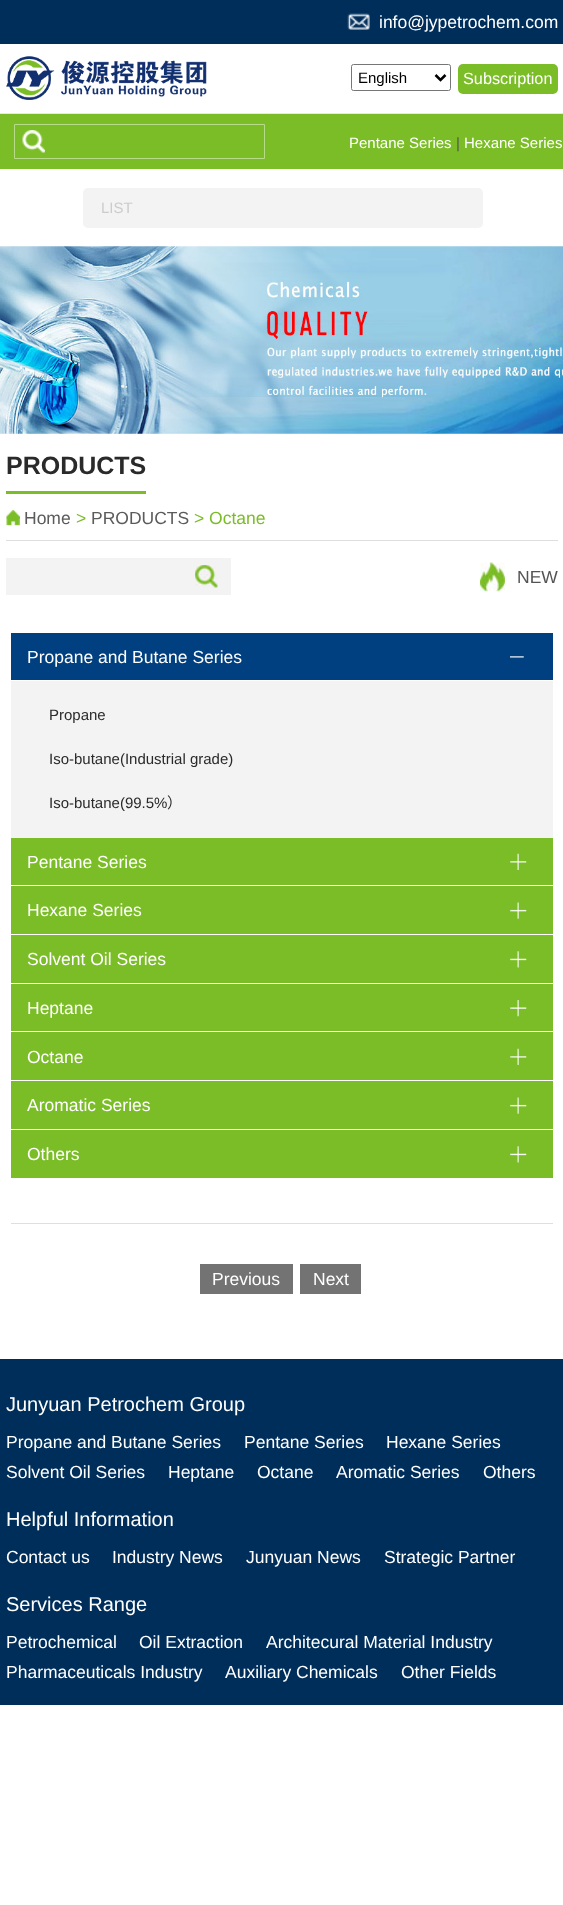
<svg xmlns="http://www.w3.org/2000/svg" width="563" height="1905">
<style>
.a{font:17.5px Liberation Sans;fill:#fff}
.b{font:15px Liberation Sans;fill:#000}
.c{font:16.25px Liberation Sans;fill:#fff}
.d{font:15px Liberation Sans;fill:#fff}
.e{font:15px Liberation Sans;fill:#545454}
.f{font:15px Liberation Sans;fill:#ccc}
.g{font:bold 25px Liberation Sans;fill:#2a2a2a}
.h{font:17.5px Liberation Sans;fill:#5b5b5b}
.i{font:17.5px Liberation Sans;fill:#7bbd27}
.j{font:17.5px Liberation Sans;fill:#545454}
.k{font:15px Liberation Sans;fill:#2a2a2a}
.l{font:15px Noto Sans CJK SC;fill:#2a2a2a}
.m{font:20px Liberation Sans;fill:#fff}
</style>
<rect width="100%" height="100%" fill="#fff"/>
<path fill="#002e5b" d="M0 0h563v44H0z"/>
<image href="1.png" x="347" y="13" width="23" height="17"/>
<path fill="#e7e7e7" d="M0 113h563v1H0z"/>
<image href="2.png" x="6" y="56" width="201" height="44"/>
<rect fill="none" stroke="#767676" x="351.5" y="64.5" width="99" height="26" rx="2"/>
<path fill="none" stroke="#000" stroke-width="2.5" d="M435.5 75l5 5l5-5"/>
<rect fill="#7bbd27" x="458" y="64" width="100" height="30" rx="5"/>
<path fill="#7bbd27" d="M0 114h563v55H0z"/>
<path fill="none" stroke="#b8db8a" d="M14.5 124.5h250v34H14.5z"/>
<image href="3.png" x="22" y="130" width="23" height="23"/>
<rect fill="#f3f3f3" x="83" y="188" width="400" height="40" rx="5"/>
<image href="4.png" x="0" y="246" width="563" height="188"/>
<path fill="#dedede" d="M6 540h552v1H6z"/>
<path fill="#7bbd27" d="M6 491h140v3H6z"/>
<image href="5.png" x="6" y="510" width="14" height="16"/>
<path fill="#f3f3f3" d="M6 558h225v37H6z"/>
<image href="6.png" x="195" y="565" width="23" height="23"/>
<image href="7.png" x="480" y="562" width="25" height="30"/>
<path fill="#f3f3f3" d="M11 681h542v157H11z"/>
<path fill="#004080" d="M11 633h542v47H11z"/>
<image href="8.png" x="510" y="656" width="14" height="2"/>
<path fill="#7bbd27" d="M11 838h542v47H11z"/>
<image href="9.png" x="510" y="853" width="17" height="17"/>
<path fill="#7bbd27" d="M11 886h542v48H11z"/>
<image href="10.png" x="510" y="902" width="17" height="17"/>
<path fill="#7bbd27" d="M11 935h542v48H11z"/>
<image href="11.png" x="510" y="951" width="17" height="17"/>
<path fill="#7bbd27" d="M11 984h542v96H11z"/>
<image href="12.png" x="510" y="1000" width="17" height="17"/>
<path fill="#fff" d="M11 1031h542v1H11z"/>
<image href="9.png" x="510" y="1048" width="17" height="17"/>
<path fill="#7bbd27" d="M11 1081h542v48H11z"/>
<image href="10.png" x="510" y="1097" width="17" height="17"/>
<path fill="#7bbd27" d="M11 1130h542v48H11z"/>
<image href="11.png" x="510" y="1146" width="17" height="17"/>
<path fill="#dfdfdf" d="M11 1223h542v1H11z"/>
<path fill="#737373" d="M200 1264h93v30H200z"/>
<path fill="#737373" d="M300 1264h61v30H300z"/>
<path fill="#002e5b" d="M0 1359h563v346H0z"/>
<text class="a" x="379" y="28">info@jypetrochem.com</text>
<text class="b" x="358" y="83">English</text>
<text class="c" x="463" y="84">Subscription</text>
<text class="d" x="349" y="148">Pentane Series</text>
<text class="e" x="456" y="148">|</text>
<text class="d" x="464" y="148">Hexane Series</text>
<text class="f" x="101" y="213">LIST</text>
<text class="g" x="6" y="474">PRODUCTS</text>
<text class="h" x="24" y="524">Home</text>
<text class="i" x="76" y="524">&gt;</text>
<text class="h" x="91" y="524">PRODUCTS</text>
<text class="i" x="194" y="524">&gt; Octane</text>
<text class="j" x="517" y="583">NEW</text>
<text class="a" x="27" y="663">Propane and Butane Series</text>
<text class="k" x="49" y="720">Propane</text>
<text class="k" x="49" y="764">Iso-butane(Industrial grade)</text>
<text class="k" x="49" y="808">Iso-butane(99.5%</text>
<text class="l" x="167" y="808">）</text>
<text class="a" x="27" y="868">Pentane Series</text>
<text class="a" x="27" y="916">Hexane Series</text>
<text class="a" x="27" y="965">Solvent Oil Series</text>
<text class="a" x="27" y="1014">Heptane</text>
<text class="a" x="27" y="1063">Octane</text>
<text class="a" x="27" y="1111">Aromatic Series</text>
<text class="a" x="27" y="1160">Others</text>
<text class="a" x="212" y="1285">Previous</text>
<text class="a" x="313" y="1285">Next</text>
<text class="m" x="6" y="1411">Junyuan Petrochem Group</text>
<text class="a" x="6" y="1448">Propane and Butane Series</text>
<text class="a" x="244" y="1448">Pentane Series</text>
<text class="a" x="386" y="1448">Hexane Series</text>
<text class="a" x="6" y="1478">Solvent Oil Series</text>
<text class="a" x="168" y="1478">Heptane</text>
<text class="a" x="257" y="1478">Octane</text>
<text class="a" x="336" y="1478">Aromatic Series</text>
<text class="a" x="483" y="1478">Others</text>
<text class="m" x="6" y="1526">Helpful Information</text>
<text class="a" x="6" y="1563">Contact us</text>
<text class="a" x="112" y="1563">Industry News</text>
<text class="a" x="246" y="1563">Junyuan News</text>
<text class="a" x="384" y="1563">Strategic Partner</text>
<text class="m" x="6" y="1611">Services Range</text>
<text class="a" x="6" y="1648">Petrochemical</text>
<text class="a" x="139" y="1648">Oil Extraction</text>
<text class="a" x="266" y="1648">Architecural Material Industry</text>
<text class="a" x="6" y="1678">Pharmaceuticals Industry</text>
<text class="a" x="225" y="1678">Auxiliary Chemicals</text>
<text class="a" x="401" y="1678">Other Fields</text>
</svg>
